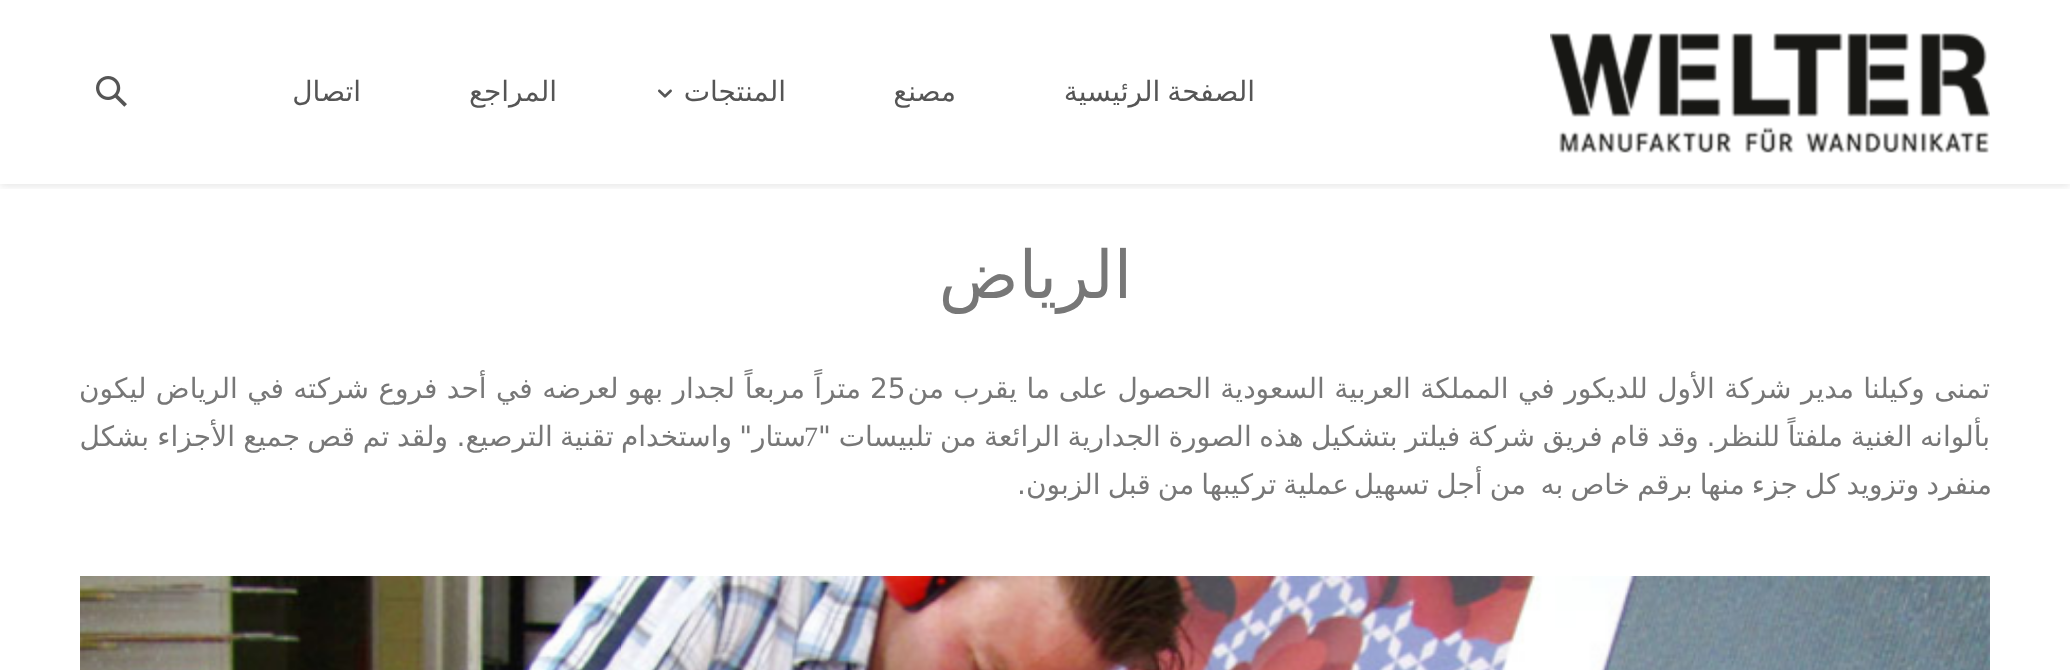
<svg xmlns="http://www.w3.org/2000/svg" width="2070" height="670">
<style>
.a{font:28px DejaVu Sans;direction:rtl;fill:#555}
.b{font:66px DejaVu Sans;direction:rtl;fill:#777}
.c{font:28px DejaVu Sans;direction:rtl;fill:#777}
.d{font:28px DejaVu Sans;fill:#777}
.e{font:28px Liberation Serif;fill:#777}
</style>
<defs>
<clipPath id="clip1"><path d="M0 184h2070v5H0z"/></clipPath>
</defs>
<rect width="100%" height="100%" fill="#fff"/>
<g clip-path="url(#clip1)">
<path fill="#0000001a" filter="blur(4px)" d="M0 2h2070v184H0z"/>
</g>
<image href="1.png" x="1550" y="33" width="440" height="120"/>
<image href="2.png" x="658" y="89" width="14" height="9"/>
<image href="3.png" x="96" y="76" width="31" height="31"/>
<image href="4.png" x="80" y="576" width="1910" height="94"/>
<text class="a" x="1255" y="101" word-spacing="-2">الصفحة الرئيسية</text>
<text class="a" x="956" y="101">مصنع</text>
<text class="a" x="786" y="101">المنتجات</text>
<text class="a" x="557" y="101">المراجع</text>
<text class="a" x="361" y="101">اتصال</text>
<text class="b" x="1132" y="298">الرياض</text>
<text class="c" x="1990" y="398" word-spacing="0.5">تمنى وكيلنا مدير شركة الأول للديكور في المملكة العربية السعودية الحصول على</text>
<text class="c" x="1050" y="398" word-spacing="0.5">ما يقرب من</text>
<text class="d" x="870" y="398">25</text>
<text class="c" x="861" y="398">متراً</text>
<text class="c" x="805" y="398">مربعاً</text>
<text class="c" x="735" y="398" word-spacing="0.5">لجدار بهو لعرضه في أحد فروع شركته في الرياض ليكون</text>
<text class="c" x="1990" y="446" word-spacing="-1.25">بألوانه الغنية ملفتاً للنظر. وقد قام فريق شركة فيلتر بتشكيل هذه الصورة الجدارية الرائعة من تلبيسات "</text>
<text class="e" x="804" y="446">7</text>
<text class="c" x="806" y="446" word-spacing="-1.75">ستار" واستخدام تقنية الترصيع.</text>
<text class="c" x="448" y="446" word-spacing="-1">ولقد تم قص</text>
<text class="c" x="300" y="446">جميع</text>
<text class="c" x="235" y="446">الأ</text>
<text class="c" x="211" y="446">جزاء</text>
<text class="c" x="149" y="446">بشكل</text>
<text class="c" x="1992" y="494" word-spacing="-1.75">منفرد وتزويد كل جزء منها برقم خاص به</text>
<text class="c" x="1526" y="494" word-spacing="-1.75">من أجل</text>
<text class="c" x="1429" y="494">تسهيل</text>
<text class="c" x="1349" y="494" word-spacing="-1.75">عملية تركيبها من قبل الزبون.</text>
</svg>
